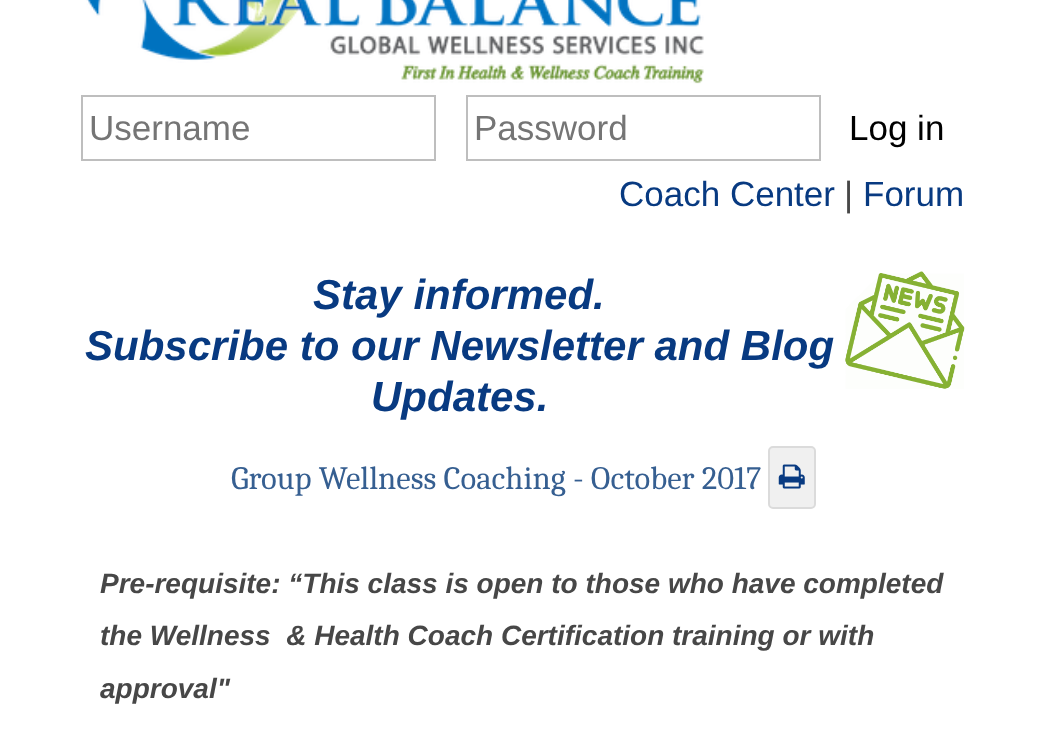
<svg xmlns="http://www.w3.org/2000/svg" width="1046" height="737">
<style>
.a{font:35px Liberation Sans;fill:#757575}
.b{font:35px Liberation Sans;fill:#000}
.c{font:35px Liberation Sans;fill:#083a81}
.d{font:35px Liberation Sans;fill:#474747}
.e{font:italic bold 42px Liberation Sans;fill:#083a81}
.f{font:32.7px Caladea;fill:#365f91}
.g{font:italic bold 28px Liberation Sans;fill:#474747}
</style>
<rect width="100%" height="100%" fill="#fff"/>
<image href="1.png" x="86" y="0" width="618" height="84"/>
<path fill="none" stroke="#bebebe" stroke-width="2" d="M82 96h353v64H82z"/>
<path fill="none" stroke="#bebebe" stroke-width="2" d="M467 96h353v64H467z"/>
<image href="2.png" x="845" y="271" width="120" height="118"/>
<rect fill="#f0f0f0" stroke="#dbdbdb" stroke-width="2" x="769" y="447" width="46" height="61" rx="4"/>
<image href="3.png" x="778" y="464" width="27" height="25"/>
<text class="a" x="89" y="140">Username</text>
<text class="a" x="474" y="140">Password</text>
<text class="b" x="849" y="140">Log in</text>
<text class="c" x="619" y="206">Coach Center</text>
<text class="d" x="844" y="206">|</text>
<text class="c" x="863" y="206">Forum</text>
<text class="e" x="313" y="309">Stay informed.</text>
<text class="e" x="85" y="360">Subscribe to our Newsletter and Blog</text>
<text class="e" x="371" y="411">Updates.</text>
<text class="f" x="231" y="489">Group Wellness Coaching - October 2017</text>
<text class="g" x="100" y="593">Pre-requisite: “This class is open to those who have completed</text>
<text class="g" xml:space="preserve" x="100" y="645">the Wellness  &amp; Health Coach Certification training or with</text>
<text class="g" x="100" y="698">approval"</text>
</svg>
